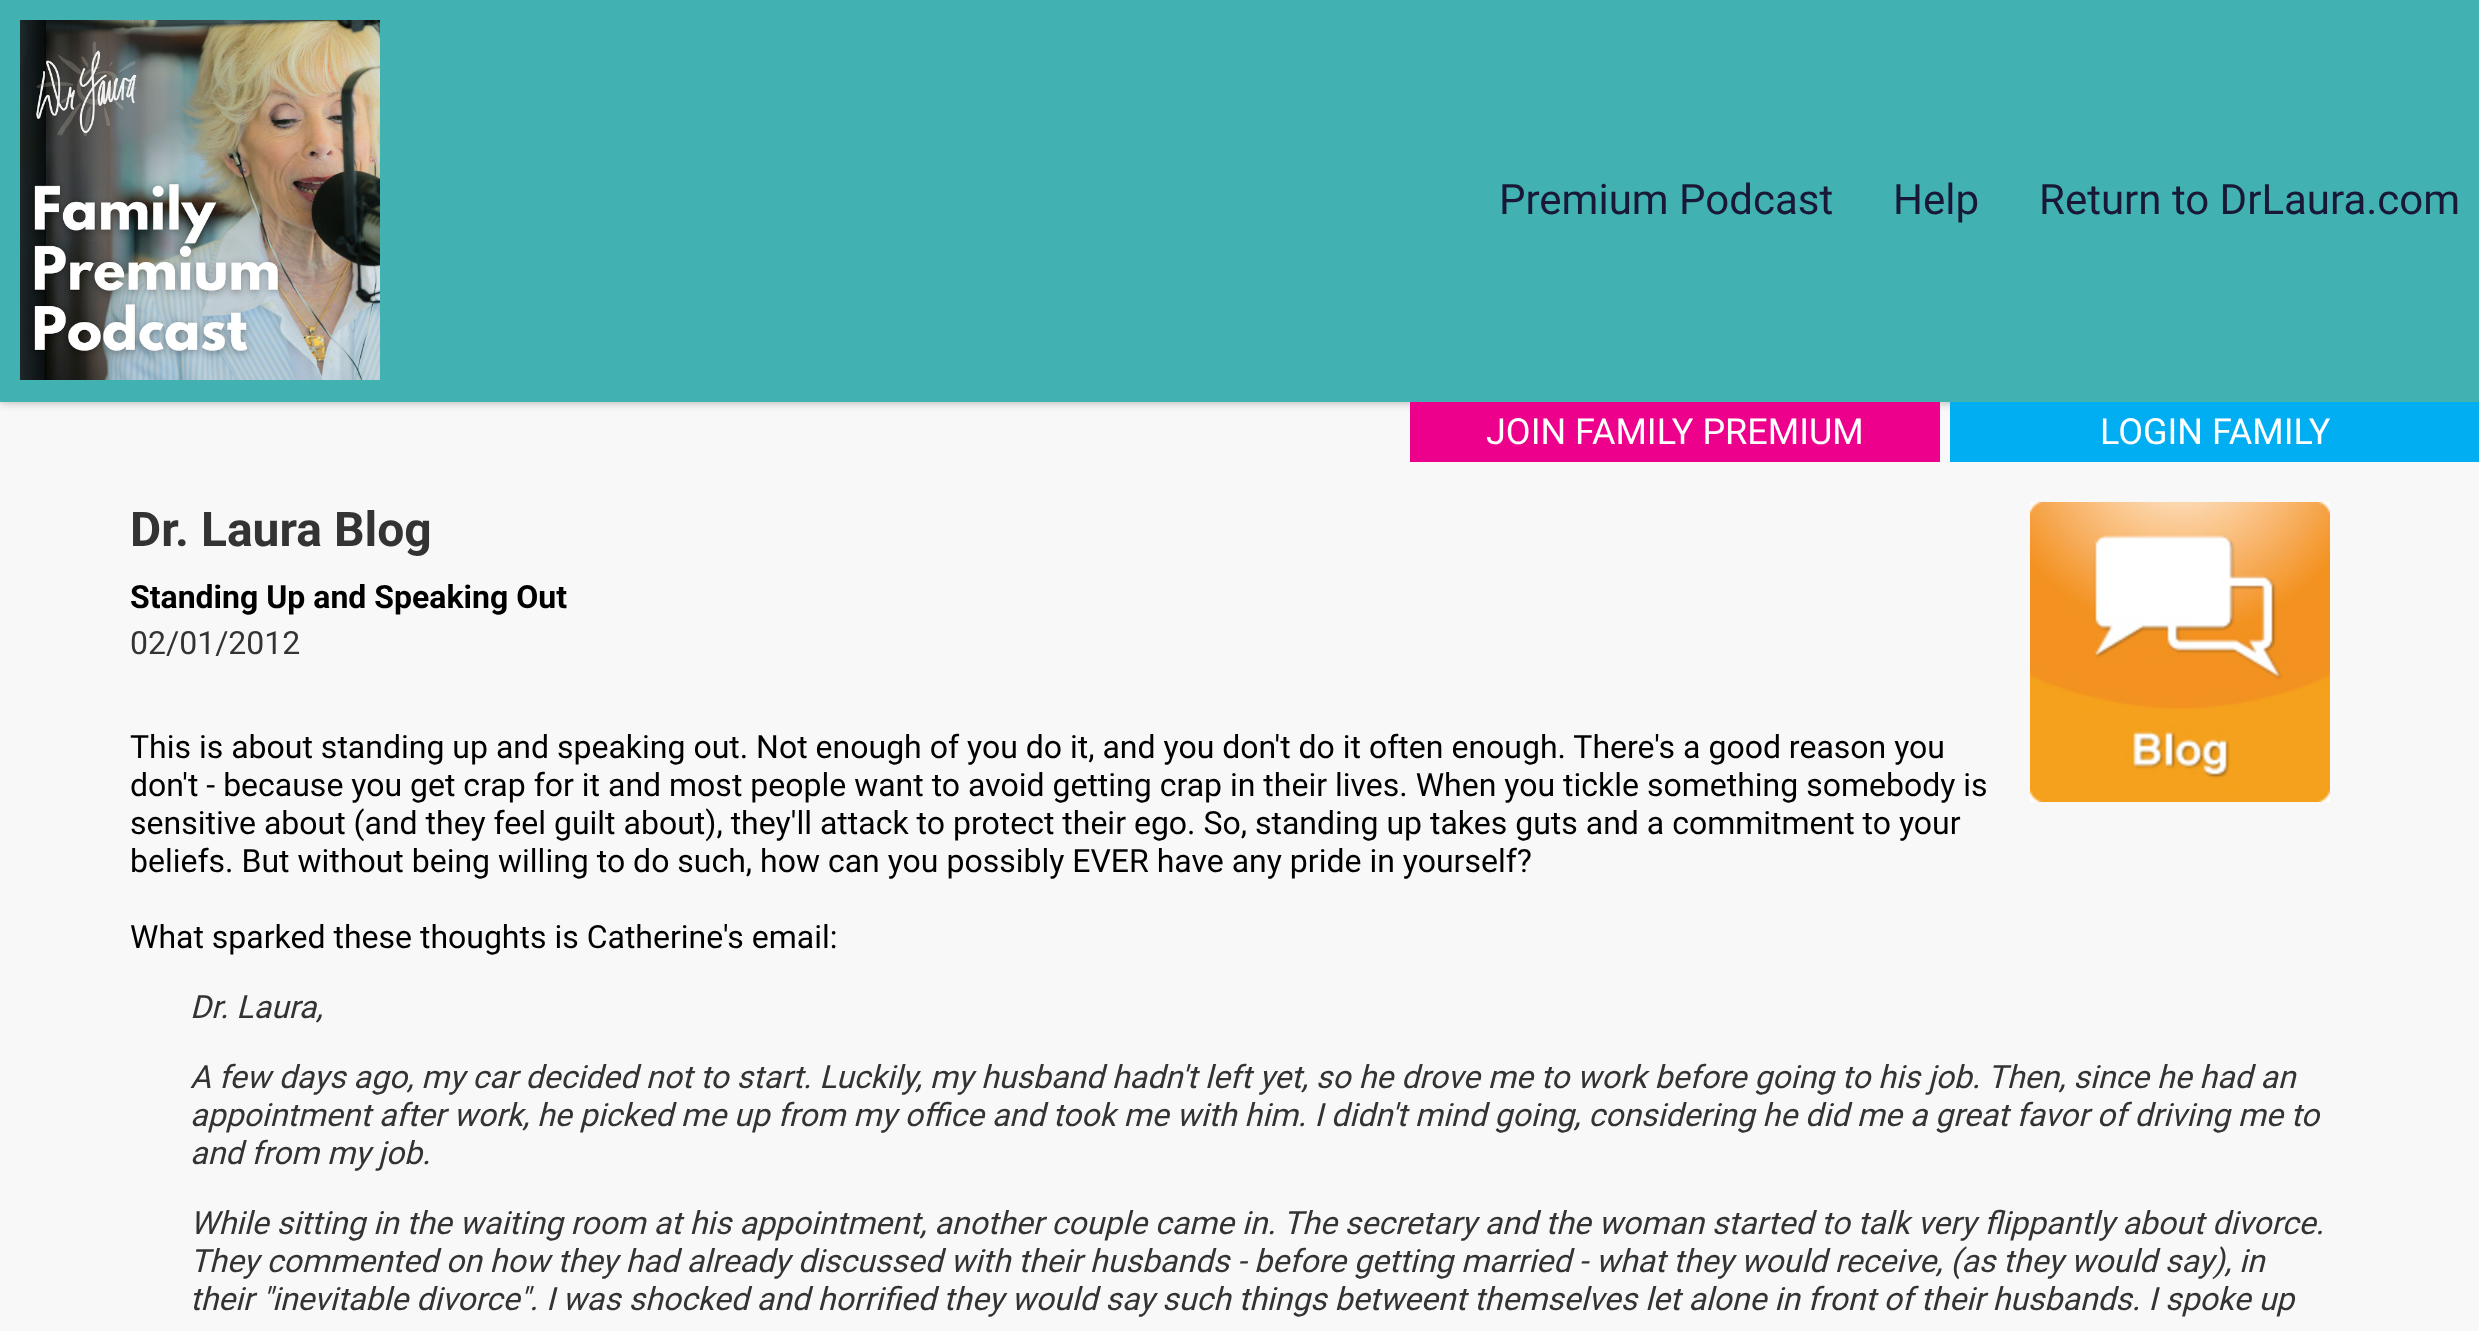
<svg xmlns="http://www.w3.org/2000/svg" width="2479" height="1331">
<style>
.a{font:42px Roboto;fill:#191837}
.b{font:36px Roboto;fill:#fff}
.c{font:bold 48px Roboto;fill:#333}
.d{font:bold 32px Roboto;fill:#000}
.e{font:32px Roboto;fill:#333}
.f{font:32px Roboto;fill:#000}
.g{font:italic 32px Roboto;fill:#333}
</style>
<rect width="100%" height="100%" fill="#f8f8f8"/>
<path fill="#0000004d" filter="blur(5px)" d="M0 0h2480v402H0z"/>
<path fill="#41b1b2" d="M0 0h2479v402H0z"/>
<image href="1.png" x="20" y="20" width="360" height="360"/>
<path fill="#ed008c" d="M1410 402h530v60H1410z"/>
<path fill="#00aef1" d="M1950 402h529v60H1950z"/>
<image href="2.png" x="2030" y="502" width="300" height="300"/>
<text class="a" x="1499" y="214">Premium Podcast</text>
<text class="a" x="1893" y="214">Help</text>
<text class="a" x="2039" y="214">Return to DrLaura.com</text>
<text class="b" x="1486" y="444">JOIN FAMILY PREMIUM</text>
<text class="b" x="2100" y="444">LOGIN FAMILY</text>
<text class="c" x="130" y="546">Dr. Laura Blog</text>
<text class="d" x="130" y="608">Standing Up and Speaking Out</text>
<text class="e" x="130" y="654">02/01/2012</text>
<text class="f" x="130" y="758">This is about standing up and speaking out. Not enough of you do it, and you don't do it often enough. There's a good reason you</text>
<text class="f" x="130" y="796">don't - because you get crap for it and most people want to avoid getting crap in their lives. When you tickle something somebody is</text>
<text class="f" x="130" y="834">sensitive about (and they feel guilt about), they'll attack to protect their ego. So, standing up takes guts and a commitment to your</text>
<text class="f" x="130" y="872">beliefs. But without being willing to do such, how can you possibly EVER have any pride in yourself?</text>
<text class="f" x="130" y="948">What sparked these thoughts is Catherine's email:</text>
<text class="g" x="190" y="1018">Dr. Laura,</text>
<text class="g" x="190" y="1088">A few days ago, my car decided not to start. Luckily, my husband hadn't left yet, so he drove me to work before going to his job. Then, since he had an</text>
<text class="g" x="190" y="1126">appointment after work, he picked me up from my office and took me with him. I didn't mind going, considering he did me a great favor of driving me to</text>
<text class="g" x="190" y="1164">and from my job.</text>
<text class="g" x="190" y="1234">While sitting in the waiting room at his appointment, another couple came in. The secretary and the woman started to talk very flippantly about divorce.</text>
<text class="g" x="190" y="1272">They commented on how they had already discussed with their husbands - before getting married - what they would receive, (as they would say), in</text>
<text class="g" x="190" y="1310">their "inevitable divorce". I was shocked and horrified they would say such things betweent themselves let alone in front of their husbands. I spoke up</text>
</svg>
